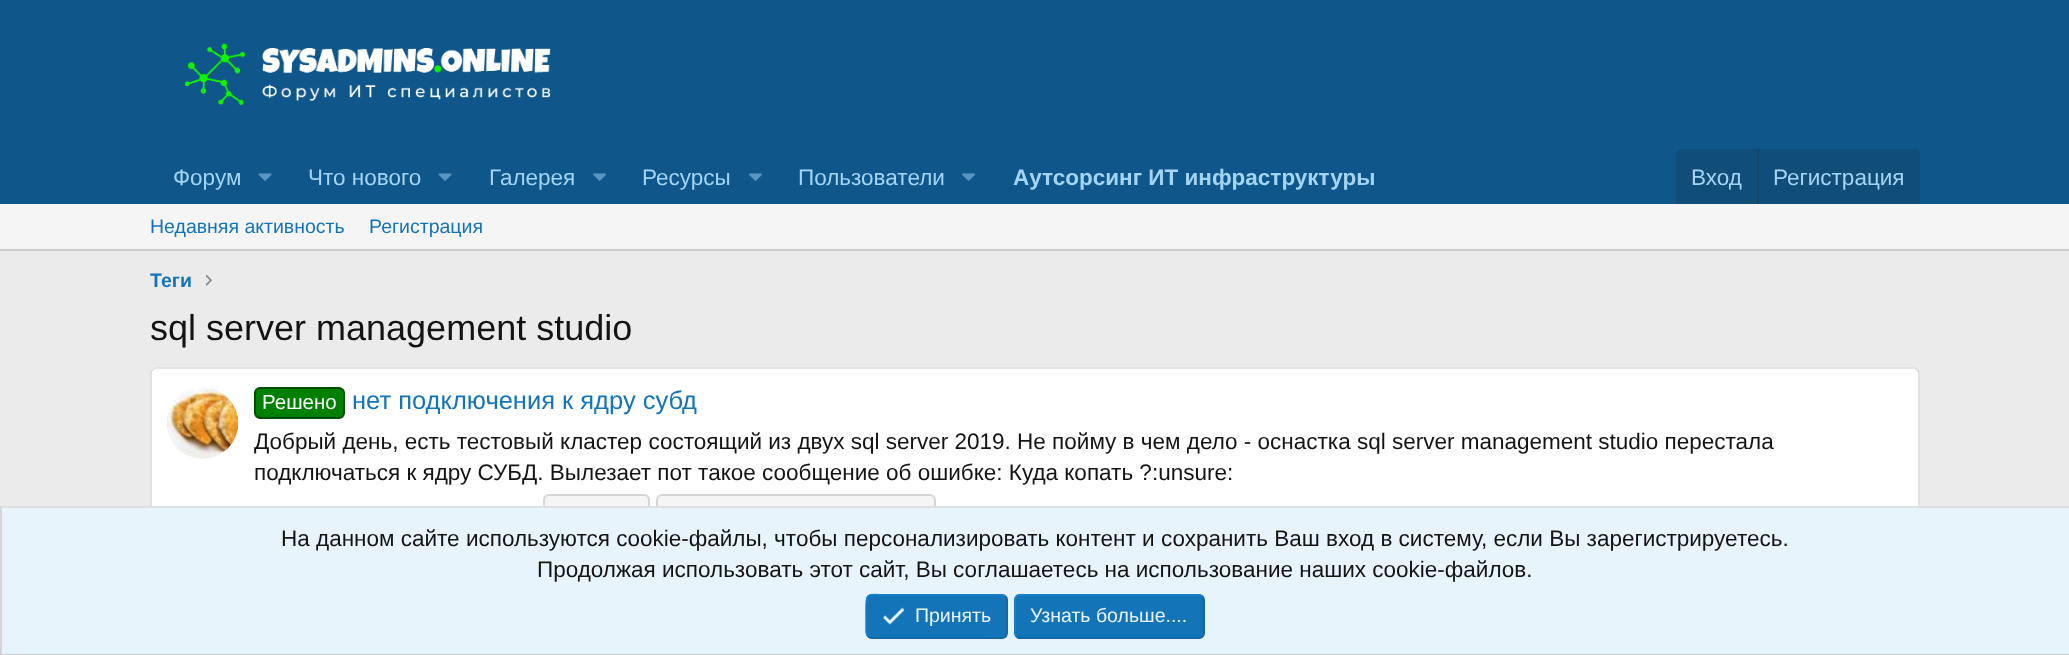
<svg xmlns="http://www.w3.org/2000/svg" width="2069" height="655">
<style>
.a{font:22.5px Liberation Sans;fill:#a3d4f5}
.b{font:bold 22.5px Liberation Sans;fill:#a3d4f5}
.c{font:19.5px Liberation Sans;fill:#1474b8}
.d{font:bold 19.5px Liberation Sans;fill:#1474b8}
.e{font:36px Liberation Sans;fill:#141414}
.f{font:20.5px Liberation Sans;fill:#fff}
.g{font:25.5px Liberation Sans;fill:#1474b8}
.h{font:22.5px Liberation Sans;fill:#141414}
.i{font:19.5px Liberation Sans;fill:#e8f4fc}
</style>
<rect width="100%" height="100%" fill="#ebebeb"/>
<path fill="#0f578a" d="M0 0h2069v204H0z"/>
<image href="1.png" x="184" y="43" width="367" height="62"/>
<image href="2.png" x="258" y="173" width="14" height="8"/>
<image href="2.png" x="438" y="173" width="14" height="8"/>
<image href="3.png" x="593" y="173" width="13" height="8"/>
<image href="3.png" x="749" y="173" width="13" height="8"/>
<image href="3.png" x="962" y="173" width="13" height="8"/>
<path fill="#104d78" d="M1682 149h232c3.5 0 6 2.5 6 6v49h-244v-49c0-3.5 2.5-6 6-6z"/>
<path fill="#114469" d="M1757 149h2v55H1757z"/>
<path fill="#f5f5f5" d="M0 204h2069v45H0z"/>
<path fill="#ccc" d="M0 249h2069v2H0z"/>
<image href="4.png" x="206" y="274" width="6" height="12"/>
<rect fill="#fff" x="150" y="368" width="1770" height="178" rx="6"/>
<path fill="none" stroke="#e0e0e0" stroke-width="1.5" d="M152.5 370c1-1 2-2 3.5-2h1758c1.5 0 2.5 1 3.5 2"/>
<path fill="none" stroke="#d6d6d6" stroke-width="1.5" d="M1917.5 370c1 1 1.5 2 1.5 3.5v166.5c0 1.5-.5 2.5-1.5 3.5"/>
<path fill="none" stroke="#d6d6d6" stroke-width="1.5" d="M152.5 543.5c-1-1-1.5-2-1.5-3.5v-166.5c0-1.5 .5-2.5 1.5-3.5"/>
<image href="5.png" x="167" y="387" width="72" height="72"/>
<rect fill="#008000" stroke="#004d00" stroke-width="2" x="255" y="388" width="89" height="30" rx="5"/>
<rect fill="#f5f5f5" stroke="#d6d6d6" stroke-width="2" x="544" y="495" width="105" height="28" rx="5"/>
<rect fill="#f5f5f5" stroke="#d6d6d6" stroke-width="2" x="657" y="495" width="278" height="28" rx="5"/>
<path fill="#e8f4fc" d="M2 508h2067v146H2z"/>
<path fill="#e0e0e0" d="M0 506h2069v2H0z"/>
<path fill="#ccc" d="M0 654h2069v1H0z"/>
<path fill="#d6d6d6" d="M0 506h2v149H0z"/>
<rect fill="#1474b8" x="866" y="594" width="142" height="45" rx="6"/>
<path fill="none" stroke="#1265a1" stroke-width="1.5" d="M1005.5 596.5c2.5 2 1.5 6 1.5 9v11c0 27 3 21.5-27 21.5h-108.5c-1.5 0-2.5-.5-3.5-1.5"/>
<path fill="none" stroke="#1782cf" stroke-width="1.5" d="M868 636.5c-2.5-2-2-6-2-9v-11c0-27-2.5-21.5 27-21.5h109c1.5 0 2.5 .5 3.5 1.5"/>
<image href="6.png" x="883" y="607" width="22" height="18"/>
<rect fill="#1474b8" x="1014" y="594" width="191" height="45" rx="6"/>
<path fill="none" stroke="#1265a1" stroke-width="1.5" d="M1202 596.5c2.5 2 2 6 2 9v22c0 4 .5 10.5-5.5 10.5h-180l-2-1.5"/>
<path fill="none" stroke="#1782cf" stroke-width="1.5" d="M1016.5 636.5c-2.5-2-1.5-6-1.5-9v-22c0-4-1-10.5 5-10.5h180l2 1.5"/>
<text class="a" x="173" y="185">Форум</text>
<text class="a" x="308" y="185">Что нового</text>
<text class="a" x="489" y="185">Галерея</text>
<text class="a" x="642" y="185">Ресурсы</text>
<text class="a" x="798" y="185">Пользователи</text>
<text class="b" x="1013" y="185">Аутсорсинг ИТ инфраструктуры</text>
<text class="a" x="1691" y="185">Вход</text>
<text class="a" x="1773" y="185">Регистрация</text>
<text class="c" x="150" y="233">Недавняя активность</text>
<text class="c" x="369" y="233">Регистрация</text>
<text class="d" x="150" y="287">Теги</text>
<text class="e" x="150" y="340">sql server management studio</text>
<text class="f" x="262" y="409">Решено</text>
<text class="g" x="352" y="409">нет подключения к ядру субд</text>
<text class="h" x="254" y="449">Добрый день, есть тестовый кластер состоящий из двух sql server 2019. Не пойму в чем дело - оснастка sql server management studio перестала</text>
<text class="h" x="254" y="480">подключаться к ядру СУБД. Вылезает пот такое сообщение об ошибке: Куда копать ?:unsure:</text>
<text class="h" x="281" y="546">На данном сайте используются cookie-файлы, чтобы персонализировать контент и сохранить Ваш вход в систему, если Вы зарегистрируетесь.</text>
<text class="h" x="537" y="577">Продолжая использовать этот сайт, Вы соглашаетесь на использование наших cookie-файлов.</text>
<text class="i" x="915" y="622">Принять</text>
<text class="i" x="1030" y="622">Узнать больше....</text>
</svg>
